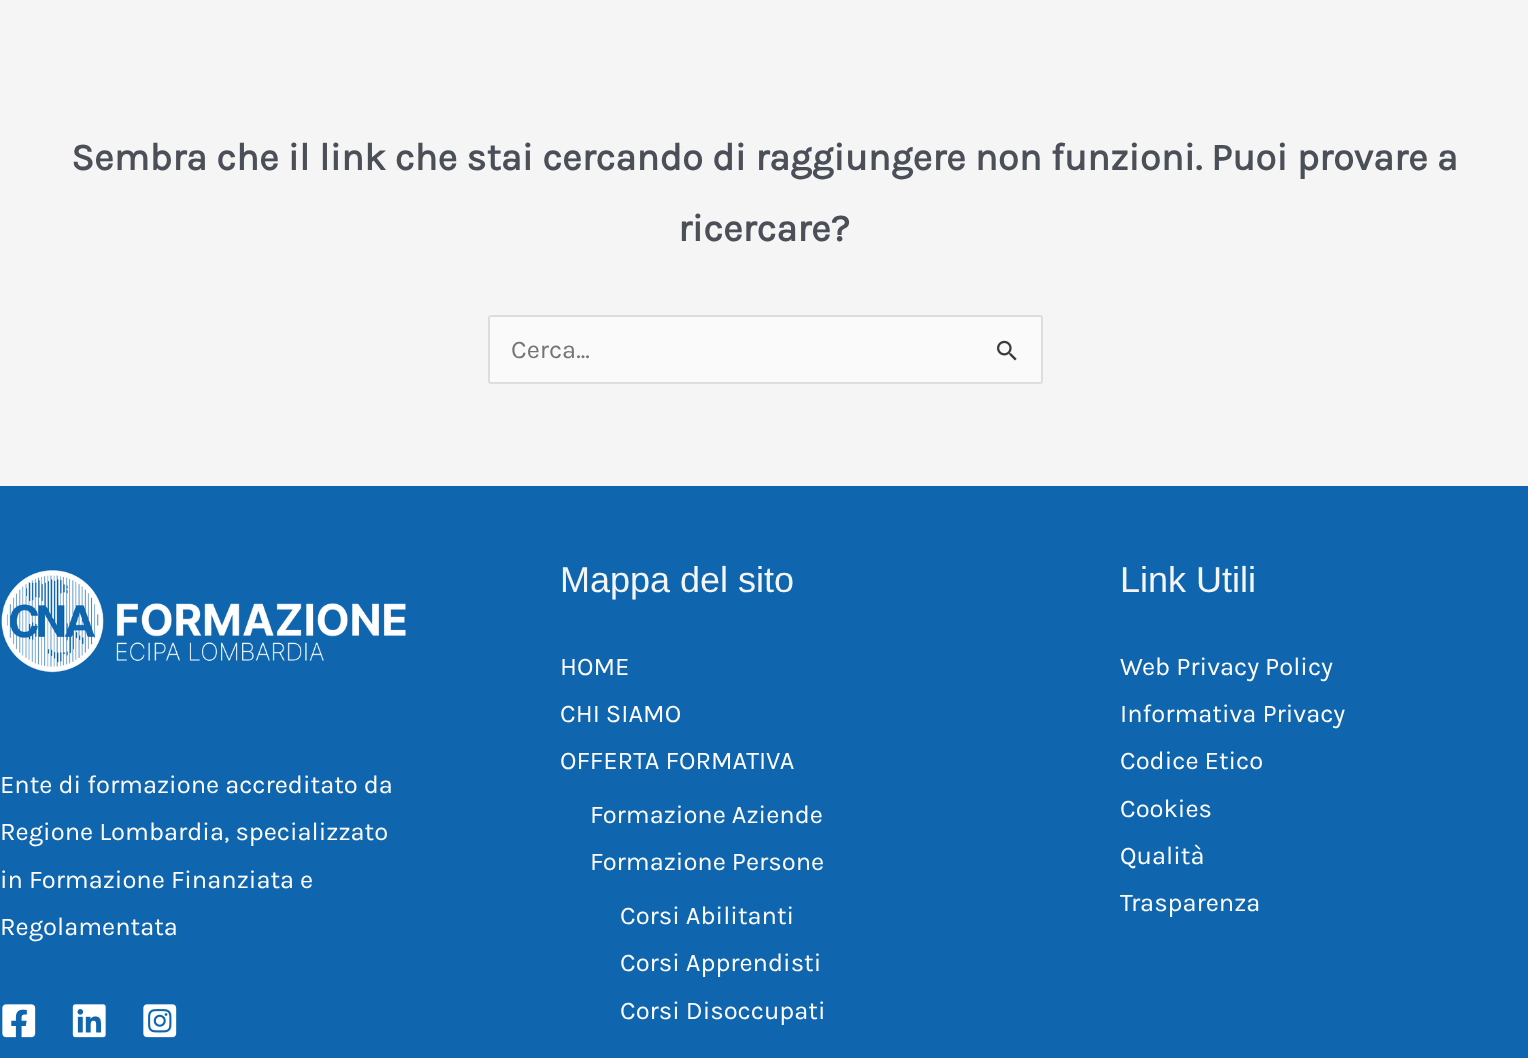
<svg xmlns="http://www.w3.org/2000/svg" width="1528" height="1058">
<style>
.a{font:bold 38.25px Karla;fill:#4b4f58}
.b{font:25.5px Karla;fill:#757575}
.c{font:25.5px Karla;fill:#fff}
.d{font:36px Liberation Sans;fill:#f5f5f5}
</style>
<rect width="100%" height="100%" fill="#f5f5f5"/>
<rect fill="#fafafa" stroke="#ddd" stroke-width="2" x="489" y="316" width="553" height="67" rx="2"/>
<image href="1.png" x="997" y="340" width="20" height="21"/>
<path fill="#0f66af" d="M0 486h1528v572H0z"/>
<image href="2.png" x="1" y="569" width="405" height="104"/>
<image href="3.png" x="2" y="1004" width="34" height="34"/>
<image href="4.png" x="72" y="1004" width="34" height="34"/>
<image href="5.png" x="143" y="1004" width="34" height="34"/>
<text class="a" x="71" y="170">Sembra che il link che stai cercando di raggiungere non funzioni. Puoi provare a</text>
<text class="a" x="678" y="241">ricercare?</text>
<text class="b" x="511" y="358">Cerca...</text>
<text class="c" x="0" y="793">Ente di formazione accreditato da</text>
<text class="c" x="0" y="840">Regione Lombardia, specializzato</text>
<text class="c" x="0" y="888">in Formazione Finanziata e</text>
<text class="c" x="0" y="935">Regolamentata</text>
<text class="d" x="560" y="592">Mappa del sito</text>
<text class="c" x="560" y="675">HOME</text>
<text class="c" x="560" y="722">CHI SIAMO</text>
<text class="c" x="560" y="769">OFFERTA FORMATIVA</text>
<text class="c" x="590" y="823">Formazione Aziende</text>
<text class="c" x="590" y="870">Formazione Persone</text>
<text class="c" x="620" y="924">Corsi Abilitanti</text>
<text class="c" x="620" y="971">Corsi Apprendisti</text>
<text class="c" x="620" y="1019">Corsi Disoccupati</text>
<text class="d" x="1120" y="592">Link Utili</text>
<text class="c" x="1120" y="675">Web Privacy Policy</text>
<text class="c" x="1120" y="722">Informativa Privacy</text>
<text class="c" x="1120" y="769">Codice Etico</text>
<text class="c" x="1120" y="817">Cookies</text>
<text class="c" x="1120" y="864">Qualità</text>
<text class="c" x="1120" y="911">Trasparenza</text>
</svg>
